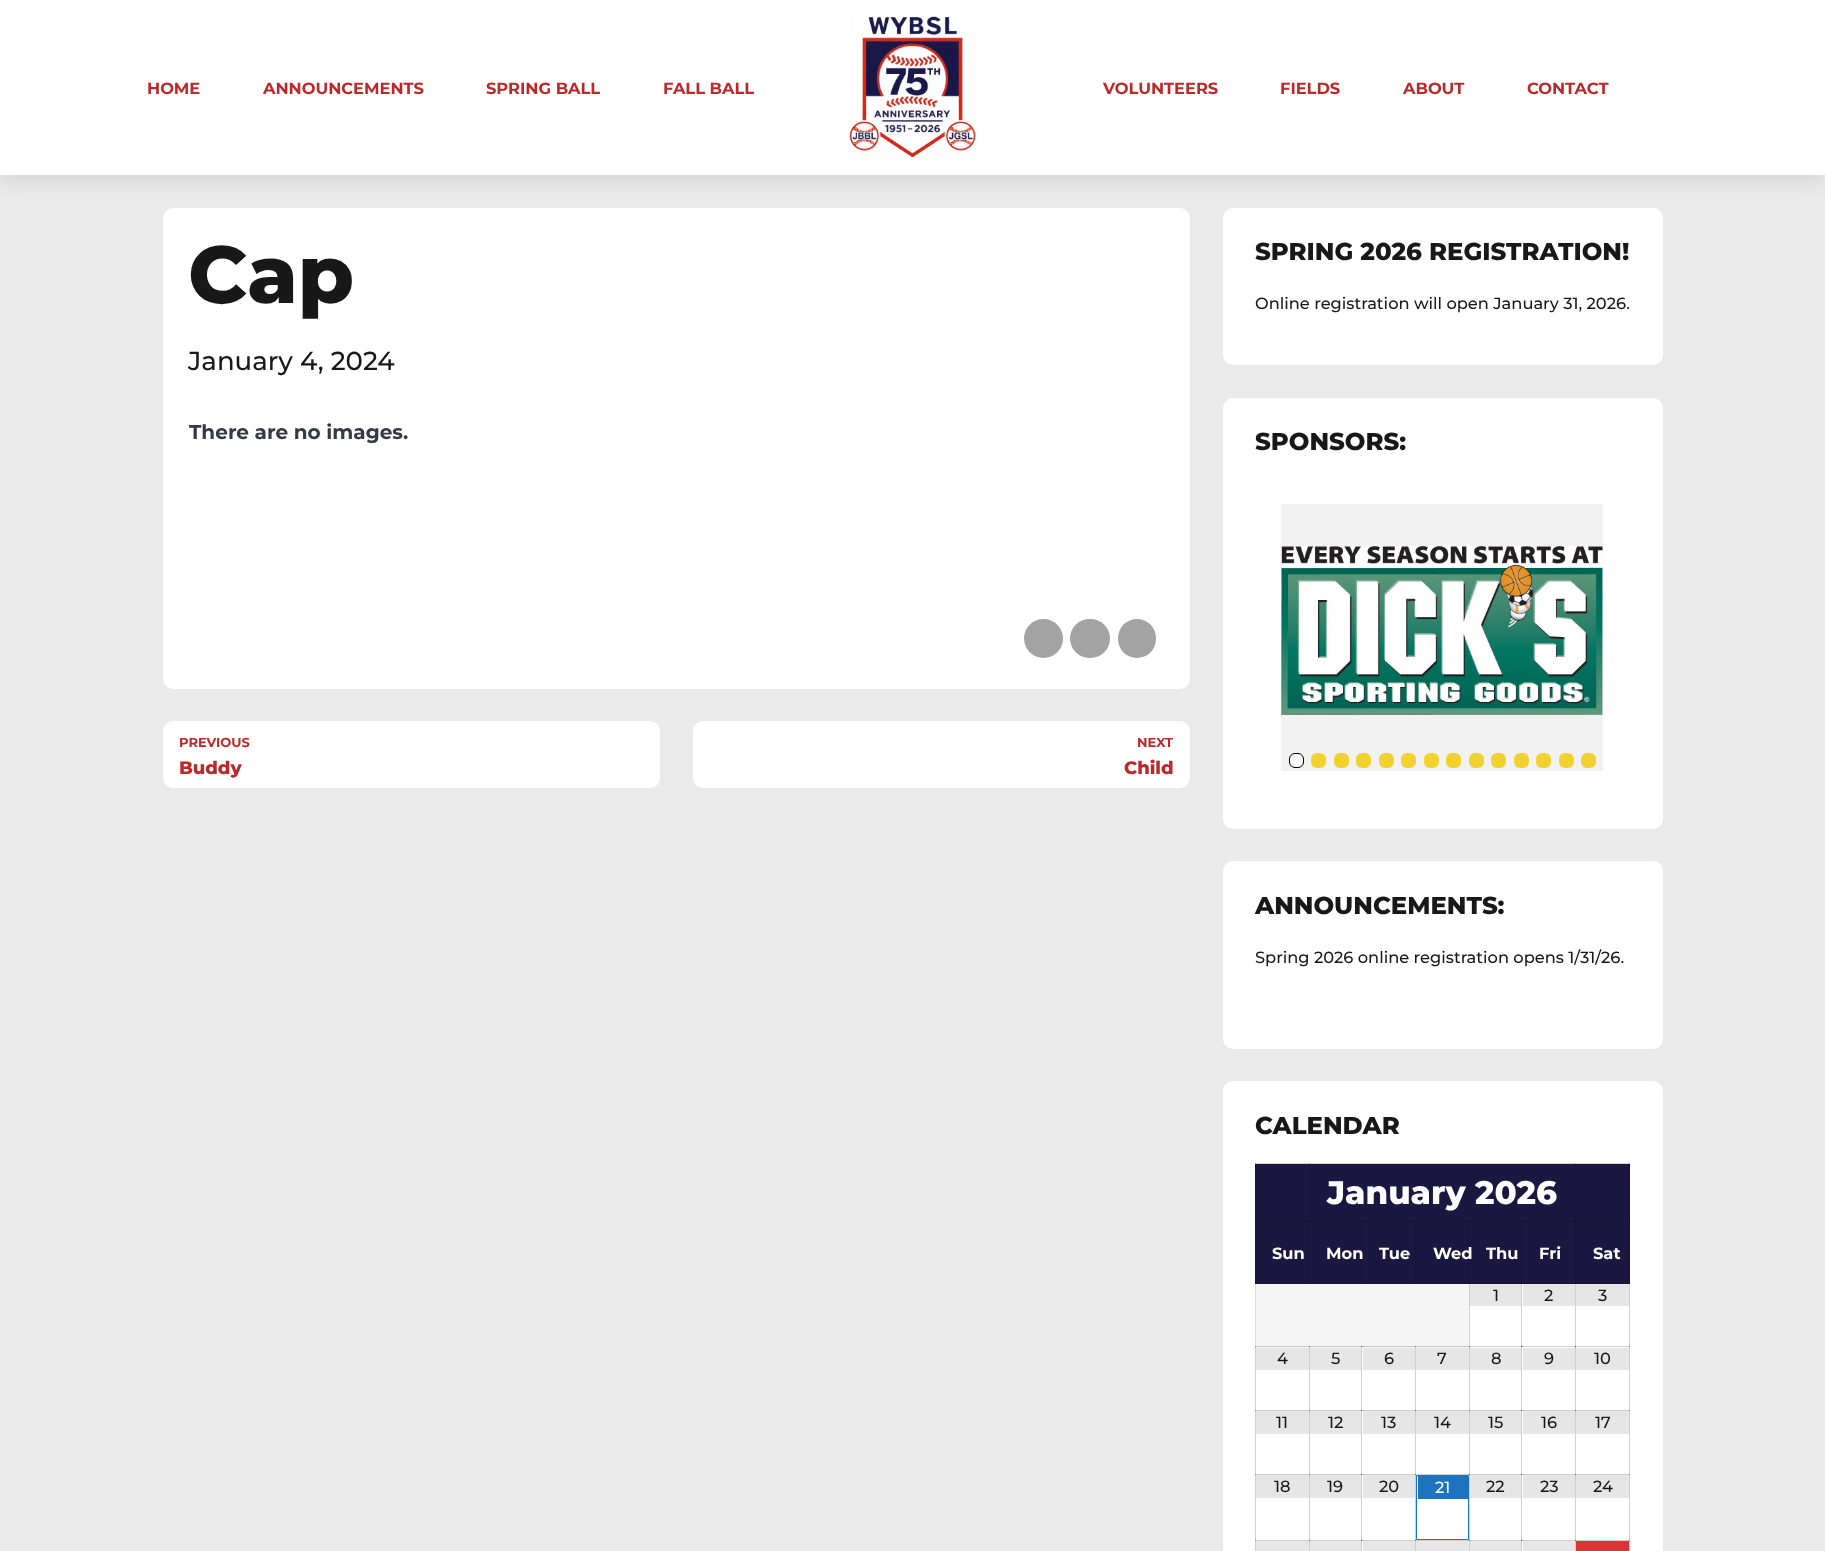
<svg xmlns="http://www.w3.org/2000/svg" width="1825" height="1551">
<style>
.a{font:bold 16.25px Montserrat;fill:#bb292a}
.b{font:800 81px Montserrat;fill:#181818}
.c{font:500 26px Montserrat;fill:#181818}
.d{font:bold 20px Montserrat;fill:#323a45}
.e{font:bold 13px Montserrat;fill:#bb292a}
.f{font:800 18px Montserrat;fill:#bb292a}
.g{font:800 24.4px Montserrat;fill:#181818}
.h{font:500 16.25px Montserrat;fill:#181818}
.i{font:800 32.5px Montserrat;fill:#fff}
.j{font:bold 16.25px Montserrat;fill:#fff}
.k{font:500 16.25px Montserrat;fill:#fff}
</style>
<rect width="100%" height="100%" fill="#eaeaea"/>
<rect fill="#fff" x="163" y="208" width="1027" height="481" rx="10"/>
<rect fill="#fff" x="1223" y="208" width="440" height="157" rx="10"/>
<path fill="#00000026" filter="blur(12.5px)" d="M0 0h1825v175H0z"/>
<path fill="#fff" d="M0 0h1825v175H0z"/>
<image href="1.png" x="849" y="16" width="127" height="143"/>
<circle fill="#a3a3a3" cx="1043.5" cy="638.5" r="19.5"/>
<rect fill="#a3a3a3" x="1070" y="619" width="40" height="39" rx="19.5"/>
<rect fill="#a3a3a3" x="1118" y="619" width="38" height="39" rx="19"/>
<rect fill="#fff" x="163" y="721" width="497" height="67" rx="10"/>
<rect fill="#fff" x="693" y="721" width="497" height="67" rx="10"/>
<rect fill="#fff" x="1223" y="398" width="440" height="431" rx="10"/>
<path fill="#f2f2f2" d="M1281 504h322v267H1281z"/>
<image href="2.png" x="1281" y="546" width="322" height="169"/>
<rect fill="#fff" stroke="#000" x="1289.5" y="753.5" width="14" height="14" rx="5.5"/>
<rect fill="#f2d22e" x="1311" y="753" width="15" height="15" rx="6"/>
<rect fill="#f2d22e" x="1334" y="753" width="15" height="15" rx="6"/>
<rect fill="#f2d22e" x="1356" y="753" width="15" height="15" rx="6"/>
<rect fill="#f2d22e" x="1379" y="753" width="15" height="15" rx="6"/>
<rect fill="#f2d22e" x="1401" y="753" width="15" height="15" rx="6"/>
<rect fill="#f2d22e" x="1424" y="753" width="15" height="15" rx="6"/>
<rect fill="#f2d22e" x="1446" y="753" width="15" height="15" rx="6"/>
<rect fill="#f2d22e" x="1469" y="753" width="15" height="15" rx="6"/>
<rect fill="#f2d22e" x="1491" y="753" width="15" height="15" rx="6"/>
<rect fill="#f2d22e" x="1514" y="753" width="15" height="15" rx="6"/>
<rect fill="#f2d22e" x="1536" y="753" width="15" height="15" rx="6"/>
<rect fill="#f2d22e" x="1559" y="753" width="15" height="15" rx="6"/>
<rect fill="#f2d22e" x="1581" y="753" width="15" height="15" rx="6"/>
<rect fill="#fff" x="1223" y="861" width="440" height="188" rx="10"/>
<rect fill="#fff" x="1223" y="1081" width="440" height="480" rx="10"/>
<path fill="#cfcfcf" d="M1469 1283h1v128H1469z"/>
<path fill="#cfcfcf" d="M1521 1283h1v65H1521z"/>
<path fill="#cfcfcf" d="M1575 1283h1v65H1575z"/>
<path fill="#cfcfcf" d="M1309 1346h1v65H1309z"/>
<path fill="#cfcfcf" d="M1361 1346h1v65H1361z"/>
<path fill="#cfcfcf" d="M1415 1346h1v65H1415z"/>
<path fill="#a7a7a7" d="M1469 1346h1v2H1469z"/>
<path fill="#cfcfcf" d="M1469 1346h54v1H1469z"/>
<path fill="#6e6e6e" d="M1469 1346h1v1H1469z"/>
<path fill="#cfcfcf" d="M1521 1346h1v65H1521z"/>
<path fill="#a7a7a7" d="M1521 1346h1v2H1521z"/>
<path fill="#cfcfcf" d="M1521 1346h55v1H1521z"/>
<path fill="#a7a7a7" d="M1521 1346h2v1H1521z"/>
<path fill="#6e6e6e" d="M1521 1346h1v1H1521z"/>
<path fill="#cfcfcf" d="M1575 1346h1v65H1575z"/>
<path fill="#a7a7a7" d="M1575 1346h1v2H1575z"/>
<path fill="#cfcfcf" d="M1575 1346h55v1H1575z"/>
<path fill="#6e6e6e" d="M1575 1346h1v1H1575z"/>
<path fill="#cfcfcf" d="M1255 1410h55v1H1255z"/>
<path fill="#cfcfcf" d="M1309 1410h1v65H1309z"/>
<path fill="#cfcfcf" d="M1309 1410h54v1H1309z"/>
<path fill="#6e6e6e" d="M1309 1410h1v1H1309z"/>
<path fill="#cfcfcf" d="M1361 1410h1v65H1361z"/>
<path fill="#cfcfcf" d="M1361 1410h55v1H1361z"/>
<path fill="#a7a7a7" d="M1361 1410h2v1H1361z"/>
<path fill="#6e6e6e" d="M1361 1410h1v1H1361z"/>
<path fill="#cfcfcf" d="M1415 1410h1v65H1415z"/>
<path fill="#cfcfcf" d="M1415 1410h55v1H1415z"/>
<path fill="#6e6e6e" d="M1415 1410h1v1H1415z"/>
<path fill="#cfcfcf" d="M1469 1410h1v65H1469z"/>
<path fill="#cfcfcf" d="M1469 1410h54v1H1469z"/>
<path fill="#6e6e6e" d="M1469 1410h1v1H1469z"/>
<path fill="#cfcfcf" d="M1521 1410h1v65H1521z"/>
<path fill="#cfcfcf" d="M1521 1410h55v1H1521z"/>
<path fill="#a7a7a7" d="M1521 1410h2v1H1521z"/>
<path fill="#6e6e6e" d="M1521 1410h1v1H1521z"/>
<path fill="#cfcfcf" d="M1575 1410h1v65H1575z"/>
<path fill="#cfcfcf" d="M1575 1410h55v1H1575z"/>
<path fill="#6e6e6e" d="M1575 1410h1v1H1575z"/>
<path fill="#cfcfcf" d="M1255 1474h55v1H1255z"/>
<path fill="#cfcfcf" d="M1309 1474h1v67H1309z"/>
<path fill="#cfcfcf" d="M1309 1474h54v1H1309z"/>
<path fill="#6e6e6e" d="M1309 1474h1v1H1309z"/>
<path fill="#cfcfcf" d="M1361 1474h1v67H1361z"/>
<path fill="#cfcfcf" d="M1361 1474h55v1H1361z"/>
<path fill="#a7a7a7" d="M1361 1474h2v1H1361z"/>
<path fill="#6e6e6e" d="M1361 1474h1v1H1361z"/>
<path fill="#cfcfcf" d="M1415 1474h1v67H1415z"/>
<path fill="#cfcfcf" d="M1415 1474h55v1H1415z"/>
<path fill="#6e6e6e" d="M1415 1474h1v1H1415z"/>
<path fill="#cfcfcf" d="M1469 1474h1v67H1469z"/>
<path fill="#cfcfcf" d="M1469 1474h54v1H1469z"/>
<path fill="#6e6e6e" d="M1469 1474h1v1H1469z"/>
<path fill="#cfcfcf" d="M1521 1474h1v67H1521z"/>
<path fill="#cfcfcf" d="M1521 1474h55v1H1521z"/>
<path fill="#a7a7a7" d="M1521 1474h2v1H1521z"/>
<path fill="#6e6e6e" d="M1521 1474h1v1H1521z"/>
<path fill="#cfcfcf" d="M1575 1474h1v67H1575z"/>
<path fill="#cfcfcf" d="M1575 1474h55v1H1575z"/>
<path fill="#6e6e6e" d="M1575 1474h1v1H1575z"/>
<path fill="#cfcfcf" d="M1255 1540h55v1H1255z"/>
<path fill="#cfcfcf" d="M1309 1540h1v11H1309z"/>
<path fill="#cfcfcf" d="M1309 1540h54v1H1309z"/>
<path fill="#6e6e6e" d="M1309 1540h1v1H1309z"/>
<path fill="#cfcfcf" d="M1361 1540h1v11H1361z"/>
<path fill="#cfcfcf" d="M1361 1540h55v1H1361z"/>
<path fill="#a7a7a7" d="M1361 1540h2v1H1361z"/>
<path fill="#6e6e6e" d="M1361 1540h1v1H1361z"/>
<path fill="#cfcfcf" d="M1415 1540h1v11H1415z"/>
<path fill="#cfcfcf" d="M1415 1540h55v1H1415z"/>
<path fill="#6e6e6e" d="M1415 1540h1v1H1415z"/>
<path fill="#cfcfcf" d="M1469 1540h1v11H1469z"/>
<path fill="#cfcfcf" d="M1469 1540h54v1H1469z"/>
<path fill="#6e6e6e" d="M1469 1540h1v1H1469z"/>
<path fill="#cfcfcf" d="M1521 1540h1v11H1521z"/>
<path fill="#cfcfcf" d="M1521 1540h55v1H1521z"/>
<path fill="#a7a7a7" d="M1521 1540h2v1H1521z"/>
<path fill="#6e6e6e" d="M1521 1540h1v1H1521z"/>
<path fill="#cfcfcf" d="M1575 1540h1v11H1575z"/>
<path fill="#cfcfcf" d="M1575 1540h55v1H1575z"/>
<path fill="#6e6e6e" d="M1575 1540h1v1H1575z"/>
<path fill="#cfcfcf" d="M1255 1346h1v205H1255z"/>
<path fill="#969696" d="M1255 1410h1v1H1255z"/>
<path fill="#969696" d="M1255 1474h1v1H1255z"/>
<path fill="#969696" d="M1255 1540h1v1H1255z"/>
<path fill="#cfcfcf" d="M1629 1283h1v268H1629z"/>
<path fill="#bababa" d="M1629 1346h1v2H1629z"/>
<path fill="#969696" d="M1629 1346h1v1H1629z"/>
<path fill="#969696" d="M1629 1410h1v1H1629z"/>
<path fill="#969696" d="M1629 1474h1v1H1629z"/>
<path fill="#969696" d="M1629 1540h1v1H1629z"/>
<path fill="#cfcfcf" d="M1255 1163h375v1H1255z"/>
<path fill="#a7a7a7" d="M1309 1163h1v1H1309z"/>
<path fill="#a7a7a7" d="M1575 1163h1v1H1575z"/>
<path fill="#a7a7a7" d="M1255 1163h1v1H1255z"/>
<path fill="#a7a7a7" d="M1629 1163h1v1H1629z"/>
<path fill="#1a1840" d="M1256 1164h53v119H1256z"/>
<path fill="#151434" d="M1255 1221h54v1H1255z"/>
<path fill="#151434" d="M1255 1164h1v59H1255z"/>
<path fill="#13122f" d="M1255 1221h1v2H1255z"/>
<path fill="#0f0e26" d="M1255 1221h1v1H1255z"/>
<path fill="#1a1840" d="M1310 1164h265v59H1310z"/>
<path fill="#17163a" d="M1309 1164h1v59H1309z"/>
<path fill="#17163a" d="M1575 1164h1v59H1575z"/>
<path fill="#13122f" d="M1309 1221h1v2H1309z"/>
<path fill="#151434" d="M1309 1221h54v1H1309z"/>
<path fill="#0d0c1f" d="M1309 1221h1v1H1309z"/>
<path fill="#151434" d="M1361 1221h1v2H1361z"/>
<path fill="#151434" d="M1361 1221h55v1H1361z"/>
<path fill="#13122f" d="M1361 1221h2v1H1361z"/>
<path fill="#0f0e26" d="M1361 1221h1v1H1361z"/>
<path fill="#151434" d="M1415 1221h1v2H1415z"/>
<path fill="#151434" d="M1415 1221h55v1H1415z"/>
<path fill="#0f0e26" d="M1415 1221h1v1H1415z"/>
<path fill="#151434" d="M1469 1221h1v63H1469z"/>
<path fill="#151434" d="M1469 1221h54v1H1469z"/>
<path fill="#0f0e26" d="M1469 1221h1v1H1469z"/>
<path fill="#151434" d="M1521 1221h1v2H1521z"/>
<path fill="#151434" d="M1521 1221h55v1H1521z"/>
<path fill="#13122f" d="M1521 1221h2v1H1521z"/>
<path fill="#0f0e26" d="M1521 1221h1v1H1521z"/>
<path fill="#13122f" d="M1575 1221h1v2H1575z"/>
<path fill="#0d0c1f" d="M1575 1221h1v1H1575z"/>
<path fill="#1a1840" d="M1576 1164h53v119H1576z"/>
<path fill="#151434" d="M1576 1221h54v1H1576z"/>
<path fill="#151434" d="M1629 1164h1v59H1629z"/>
<path fill="#13122f" d="M1629 1221h1v2H1629z"/>
<path fill="#0f0e26" d="M1629 1221h1v1H1629z"/>
<path fill="#17163a" d="M1255 1283h54v1H1255z"/>
<path fill="#151434" d="M1255 1223h1v61H1255z"/>
<path fill="#13122f" d="M1255 1283h1v1H1255z"/>
<path fill="#1a1840" d="M1310 1223h105v60H1310z"/>
<path fill="#151434" d="M1309 1223h1v61H1309z"/>
<path fill="#17163a" d="M1309 1283h160v1H1309z"/>
<path fill="#11102a" d="M1309 1283h1v1H1309z"/>
<path fill="#151434" d="M1361 1223h1v61H1361z"/>
<path fill="#151434" d="M1361 1283h2v1H1361z"/>
<path fill="#11102a" d="M1361 1283h1v1H1361z"/>
<path fill="#151434" d="M1415 1223h1v61H1415z"/>
<path fill="#11102a" d="M1415 1283h1v1H1415z"/>
<path fill="#1a1840" d="M1416 1223h53v60H1416z"/>
<path fill="#1a1840" d="M1470 1223h105v60H1470z"/>
<path fill="#151434" d="M1521 1223h1v61H1521z"/>
<path fill="#151434" d="M1469 1283h54v1H1469z"/>
<path fill="#0d0c1f" d="M1469 1283h1v1H1469z"/>
<path fill="#11102a" d="M1521 1283h2v1H1521z"/>
<path fill="#0c0b1c" d="M1521 1283h1v1H1521z"/>
<path fill="#151434" d="M1575 1223h1v61H1575z"/>
<path fill="#151434" d="M1523 1283h107v1H1523z"/>
<path fill="#0c0b1c" d="M1575 1283h1v1H1575z"/>
<path fill="#151434" d="M1629 1223h1v61H1629z"/>
<path fill="#0f0e26" d="M1629 1283h1v1H1629z"/>
<path fill="#f5f5f5" d="M1256 1284h213v64H1256z"/>
<path fill="#c7c7c7" d="M1255 1346h54v1H1255z"/>
<path fill="#ddd" d="M1255 1284h1v64H1255z"/>
<path fill="#c7c7c7" d="M1255 1346h1v2H1255z"/>
<path fill="#a1a1a1" d="M1255 1346h1v1H1255z"/>
<path fill="#e6e6e6" d="M1470 1284h51v22H1470z"/>
<path fill="#e6e6e6" d="M1523 1284h52v22H1523z"/>
<path fill="#e6e6e6" d="M1576 1284h53v22H1576z"/>
<path fill="#c7c7c7" d="M1309 1346h1v2H1309z"/>
<path fill="#c7c7c7" d="M1309 1346h160v1H1309z"/>
<path fill="#838383" d="M1309 1346h1v1H1309z"/>
<path fill="#c7c7c7" d="M1361 1346h1v2H1361z"/>
<path fill="#a1a1a1" d="M1361 1346h2v1H1361z"/>
<path fill="#838383" d="M1361 1346h1v1H1361z"/>
<path fill="#c7c7c7" d="M1415 1346h1v2H1415z"/>
<path fill="#838383" d="M1415 1346h1v1H1415z"/>
<path fill="#e6e6e6" d="M1256 1348h53v22H1256z"/>
<path fill="#e6e6e6" d="M1310 1348h51v22H1310z"/>
<path fill="#e6e6e6" d="M1363 1348h52v22H1363z"/>
<path fill="#e6e6e6" d="M1416 1348h53v22H1416z"/>
<path fill="#e6e6e6" d="M1470 1348h51v22H1470z"/>
<path fill="#e6e6e6" d="M1523 1348h52v22H1523z"/>
<path fill="#e6e6e6" d="M1576 1348h53v22H1576z"/>
<path fill="#e6e6e6" d="M1256 1411h53v23H1256z"/>
<path fill="#e6e6e6" d="M1310 1411h51v23H1310z"/>
<path fill="#e6e6e6" d="M1363 1411h52v23H1363z"/>
<path fill="#e6e6e6" d="M1416 1411h53v23H1416z"/>
<path fill="#e6e6e6" d="M1470 1411h51v23H1470z"/>
<path fill="#e6e6e6" d="M1523 1411h52v23H1523z"/>
<path fill="#e6e6e6" d="M1576 1411h53v23H1576z"/>
<path fill="#e6e6e6" d="M1256 1475h53v23H1256z"/>
<path fill="#e6e6e6" d="M1310 1475h51v23H1310z"/>
<path fill="#e6e6e6" d="M1363 1475h52v23H1363z"/>
<path fill="none" stroke="#1e73be" d="M1416.5 1475.5h52v64H1416.5z"/>
<path fill="#1e73be" d="M1418 1476h50v23H1418z"/>
<path fill="#e6e6e6" d="M1470 1475h51v23H1470z"/>
<path fill="#e6e6e6" d="M1523 1475h52v23H1523z"/>
<path fill="#e6e6e6" d="M1576 1475h53v23H1576z"/>
<path fill="#e6e6e6" d="M1256 1541h53v10H1256z"/>
<path fill="#e6e6e6" d="M1310 1541h51v10H1310z"/>
<path fill="#e6e6e6" d="M1363 1541h52v10H1363z"/>
<path fill="#e6e6e6" d="M1416 1541h53v10H1416z"/>
<path fill="#e6e6e6" d="M1470 1541h51v10H1470z"/>
<path fill="#e6e6e6" d="M1523 1541h52v10H1523z"/>
<path fill="#d33" d="M1576 1541h53v10H1576z"/>
<text class="a" x="147" y="94">HOME</text>
<text class="a" x="263" y="94">ANNOUNCEMENTS</text>
<text class="a" x="486" y="94">SPRING BALL</text>
<text class="a" x="663" y="94">FALL BALL</text>
<text class="a" x="1103" y="94">VOLUNTEERS</text>
<text class="a" x="1280" y="94">FIELDS</text>
<text class="a" x="1403" y="94">ABOUT</text>
<text class="a" x="1527" y="94">CONTACT</text>
<text class="b" x="188" y="303">Cap</text>
<text class="c" x="188" y="370">January 4, 2024</text>
<text class="d" x="189" y="439">There are no images.</text>
<text class="e" x="179" y="747">PREVIOUS</text>
<text class="f" x="179" y="774">Buddy</text>
<text class="e" x="1137" y="747">NEXT</text>
<text class="f" x="1124" y="774">Child</text>
<text class="g" x="1255" y="260">SPRING 2026 REGISTRATION!</text>
<text class="h" x="1255" y="309">Online registration will open January 31, 2026.</text>
<text class="g" x="1255" y="450">SPONSORS:</text>
<text class="g" x="1255" y="914">ANNOUNCEMENTS:</text>
<text class="h" x="1255" y="963">Spring 2026 online registration opens 1/31/26.</text>
<text class="g" x="1255" y="1134">CALENDAR</text>
<text class="i" x="1327" y="1204">January 2026</text>
<text class="j" x="1272" y="1259">Sun</text>
<text class="j" x="1326" y="1259">Mon</text>
<text class="j" x="1379" y="1259">Tue</text>
<text class="j" x="1433" y="1259">Wed</text>
<text class="j" x="1486" y="1259">Thu</text>
<text class="j" x="1539" y="1259">Fri</text>
<text class="j" x="1593" y="1259">Sat</text>
<text class="h" x="1493" y="1301">1</text>
<text class="h" x="1544" y="1301">2</text>
<text class="h" x="1598" y="1301">3</text>
<text class="h" x="1277" y="1364">4</text>
<text class="h" x="1331" y="1364">5</text>
<text class="h" x="1384" y="1364">6</text>
<text class="h" x="1437" y="1364">7</text>
<text class="h" x="1491" y="1364">8</text>
<text class="h" x="1544" y="1364">9</text>
<text class="h" x="1594" y="1364">10</text>
<text class="h" x="1276" y="1428">11</text>
<text class="h" x="1328" y="1428">12</text>
<text class="h" x="1381" y="1428">13</text>
<text class="h" x="1434" y="1428">14</text>
<text class="h" x="1488" y="1428">15</text>
<text class="h" x="1541" y="1428">16</text>
<text class="h" x="1595" y="1428">17</text>
<text class="h" x="1274" y="1492">18</text>
<text class="h" x="1327" y="1492">19</text>
<text class="h" x="1379" y="1492">20</text>
<text class="k" x="1435" y="1493">21</text>
<text class="h" x="1486" y="1492">22</text>
<text class="h" x="1540" y="1492">23</text>
<text class="h" x="1593" y="1492">24</text>
</svg>
